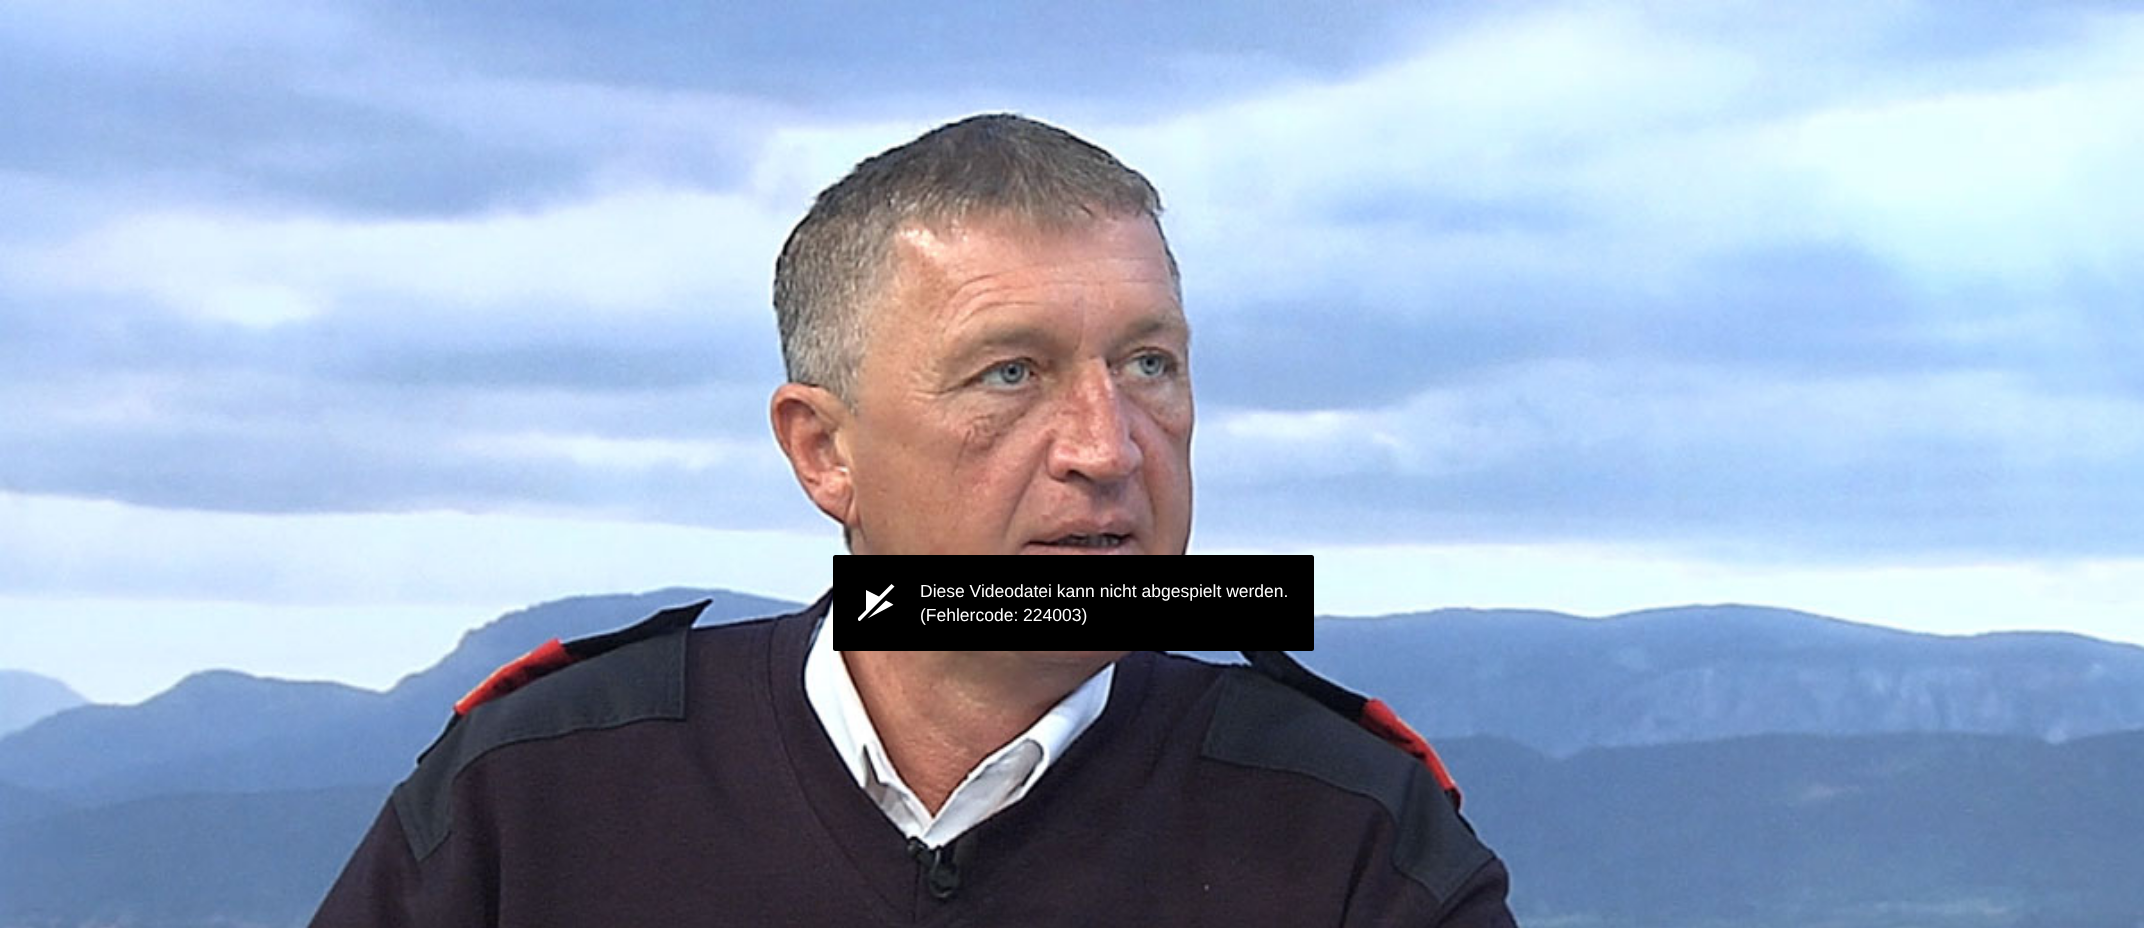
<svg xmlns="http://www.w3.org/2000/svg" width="2144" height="928">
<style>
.a{font:17.5px Liberation Sans;fill:#fff}
</style>
<defs>
<clipPath id="clip1"><path d="M858 584h37v37H858z"/></clipPath>
</defs>
<rect width="100%" height="100%" fill="#fff"/>
<image href="1.png" x="0" y="0" width="2144" height="928"/>
<rect fill="#000" x="833" y="555" width="481" height="96" rx="2.5"/>
<g clip-path="url(#clip1)">
<path fill="#fff" d="M893 605l-25.5 13.5l18.5-18c6.5 3.5 8 4 7 4.5zm-1.5-21l-12.5 12.5l-13-6.5v20l-9 9l2.5 2.5l35-35z"/>
</g>
<text class="a" x="920" y="597">Diese Videodatei kann nicht abgespielt werden.</text>
<text class="a" x="920" y="621">(Fehlercode: 224003)</text>
</svg>
